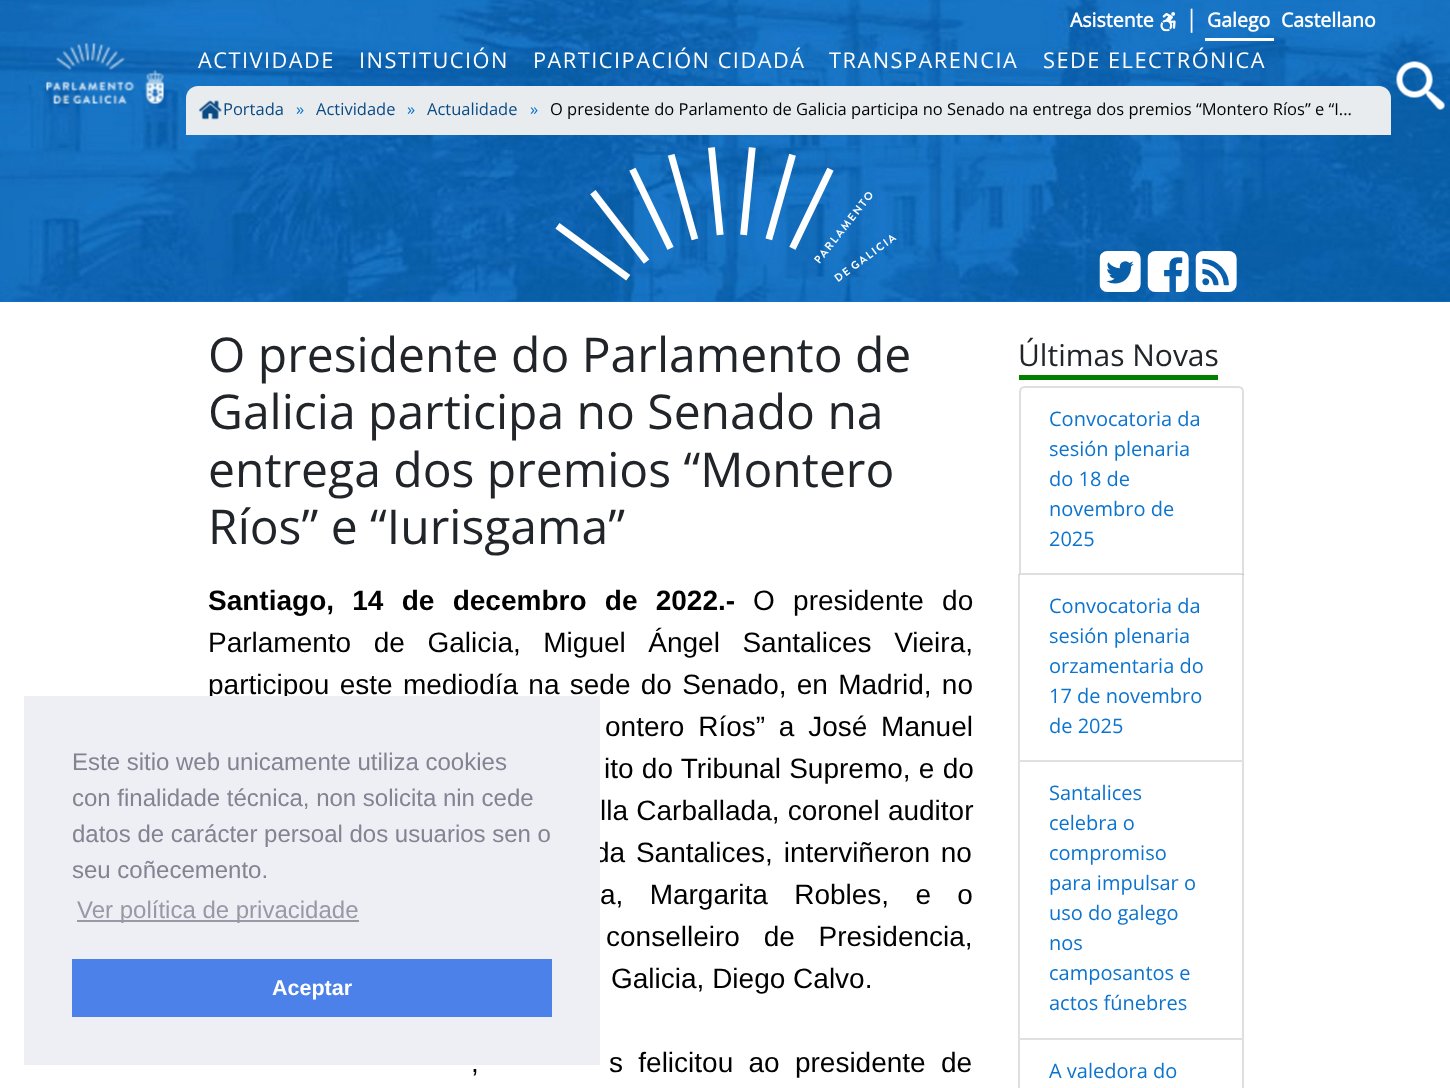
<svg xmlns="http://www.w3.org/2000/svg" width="1450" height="1088">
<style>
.a{font:bold 19.5px Open Sans;fill:#fff}
.b{font:24px Open Sans;fill:#fff}
.c{font:21.75px Open Sans;letter-spacing:1.5px;fill:#fff}
.d{font:16.5px Open Sans;fill:#0a4a83}
.e{font:16.5px Open Sans;fill:#0c73ce}
.f{font:16.5px Open Sans;fill:#000}
.g{font:48px Open Sans;fill:#212529}
.h{font:bold 28px Liberation Sans;fill:#000}
.i{font:28px Liberation Sans;fill:#000}
.j{font:30px Open Sans;fill:#212529}
.k{font:20px Open Sans;fill:#0c73ce}
.l{font:24px Liberation Sans;fill:#838391}
.m{font:24px Liberation Sans;fill:#9899a5}
.n{font:bold 21.5px Liberation Sans;fill:#fff}
</style>
<rect width="100%" height="100%" fill="#fff"/>
<path fill="#0e78d5" d="M0 301h1450v1H0z"/>
<image href="1.png" x="0" y="0" width="1450" height="302"/>
<image href="2.png" x="555" y="147" width="342" height="135"/>
<image href="3.png" x="1099" y="251" width="42" height="41"/>
<image href="4.png" x="1147" y="251" width="42" height="41"/>
<image href="5.png" x="1195" y="251" width="42" height="41"/>
<image href="6.png" x="1160" y="12" width="16" height="20"/>
<path fill="#fff" d="M1205 38h69v3H1205z"/>
<image href="7.png" x="46" y="43" width="118" height="61"/>
<path fill="#e9ecef" d="M198 86h1181c6.5 0 12 5.5 12 12v37h-1205v-37c0-6.5 5.5-12 12-12z"/>
<image href="8.png" x="198" y="100" width="24" height="20"/>
<image href="9.png" x="1396" y="61" width="49" height="49"/>
<path fill="#008000" d="M1019 375h199v5H1019z"/>
<path fill="none" stroke="#dfdfdf" stroke-width="2" d="M1025 387h213c3 0 5 2 5 5v182h-223v-182c0-3 2-5 5-5z"/>
<path fill="#0000001f" d="M1244 574v188l-2-2v-186z"/>
<path fill="#0000001f" d="M1244 762h-226l2-2h222z"/>
<path fill="#0000001f" d="M1018 762v-188h2v186z"/>
<path fill="#dfdfdf" d="M1244 762v278l-2-2v-276z"/>
<path fill="#0000001f" d="M1244 1040h-226l2-2h222z"/>
<path fill="#0000001f" d="M1018 1040v-278h2v276z"/>
<path fill="#dfdfdf" d="M1244 1040v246l-2-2v-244z"/>
<path fill="#dfdfdf" d="M1018 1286v-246h2v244z"/>
<text class="a" x="1070" y="27">Asistente</text>
<text class="b" x="1185" y="27">|</text>
<text class="a" x="1207" y="27">Galego</text>
<text class="a" x="1281" y="27">Castellano</text>
<text class="c" x="198" y="68">ACTIVIDADE</text>
<text class="c" x="359" y="68">INSTITUCIÓN</text>
<text class="c" x="533" y="68">PARTICIPACIÓN CIDADÁ</text>
<text class="c" x="829" y="68">TRANSPARENCIA</text>
<text class="c" x="1043" y="68">SEDE ELECTRÓNICA</text>
<text class="d" x="223" y="115">Portada</text>
<text class="e" x="296" y="115">»</text>
<text class="d" x="316" y="115">Actividade</text>
<text class="e" x="407" y="115">»</text>
<text class="d" x="427" y="115">Actualidade</text>
<text class="e" x="530" y="115">»</text>
<text class="f" x="550" y="115">O presidente do Parlamento de Galicia participa no Senado na entrega dos premios “Montero Ríos” e “I...</text>
<text class="g" x="208" y="372">O presidente do Parlamento de</text>
<text class="g" x="208" y="429">Galicia participa no Senado na</text>
<text class="g" x="208" y="487">entrega dos premios “Montero</text>
<text class="g" x="208" y="544">Ríos” e “Iurisgama”</text>
<text class="h" x="208" y="610" word-spacing="10.5">Santiago, 14 de decembro de 2022.-</text>
<text class="i" x="753" y="610" word-spacing="10.5">O presidente do</text>
<text class="i" x="208" y="652" word-spacing="14.75">Parlamento de Galicia, Miguel Ángel Santalices Vieira,</text>
<text class="i" x="208" y="694" word-spacing="2.5">participou este mediodía na sede do Senado, en Madrid, no</text>
<text class="i" x="605" y="736" word-spacing="6">ontero Ríos” a José Manuel</text>
<text class="i" x="604" y="778" word-spacing="0.5">ito do Tribunal Supremo, e do</text>
<text class="i" x="600" y="820" word-spacing="0.5">lla Carballada, coronel auditor</text>
<text class="i" x="594" y="862" word-spacing="3">da Santalices, interviñeron no</text>
<text class="i" x="600" y="904" word-spacing="18.5">a, Margarita Robles, e o</text>
<text class="i" x="606" y="946" word-spacing="16">conselleiro de Presidencia,</text>
<text class="i" x="611" y="988">Galicia, Diego Calvo.</text>
<text class="i" x="471" y="1072" word-spacing="7.5">,</text>
<text class="i" x="609" y="1072" word-spacing="7.5">s felicitou ao presidente de</text>
<text class="j" x="1018" y="366">Últimas Novas</text>
<text class="k" x="1049" y="426">Convocatoria da</text>
<text class="k" x="1049" y="456">sesión plenaria</text>
<text class="k" x="1049" y="486">do 18 de</text>
<text class="k" x="1049" y="516">novembro de</text>
<text class="k" x="1049" y="546">2025</text>
<text class="k" x="1049" y="613">Convocatoria da</text>
<text class="k" x="1049" y="643">sesión plenaria</text>
<text class="k" x="1049" y="673">orzamentaria do</text>
<text class="k" x="1049" y="703">17 de novembro</text>
<text class="k" x="1049" y="733">de 2025</text>
<text class="k" x="1049" y="800">Santalices</text>
<text class="k" x="1049" y="830">celebra o</text>
<text class="k" x="1049" y="860">compromiso</text>
<text class="k" x="1049" y="890">para impulsar o</text>
<text class="k" x="1049" y="920">uso do galego</text>
<text class="k" x="1049" y="950">nos</text>
<text class="k" x="1049" y="980">camposantos e</text>
<text class="k" x="1049" y="1010">actos fúnebres</text>
<text class="k" x="1049" y="1078">A valedora do</text>
<path fill="#edeff5" d="M24 696h576v369H24z"/>
<text class="l" x="72" y="770">Este sitio web unicamente utiliza cookies</text>
<text class="l" x="72" y="806">con finalidade técnica, non solicita nin cede</text>
<text class="l" x="72" y="842">datos de carácter persoal dos usuarios sen o</text>
<text class="l" x="72" y="878">seu coñecemento.</text>
<path fill="#9899a5" d="M77 920h282v2H77z"/>
<text class="m" x="77" y="918">Ver política de privacidade</text>
<path fill="#4b81e8" d="M72 959h480v58H72z"/>
<text class="n" x="272" y="995">Aceptar</text>
</svg>
